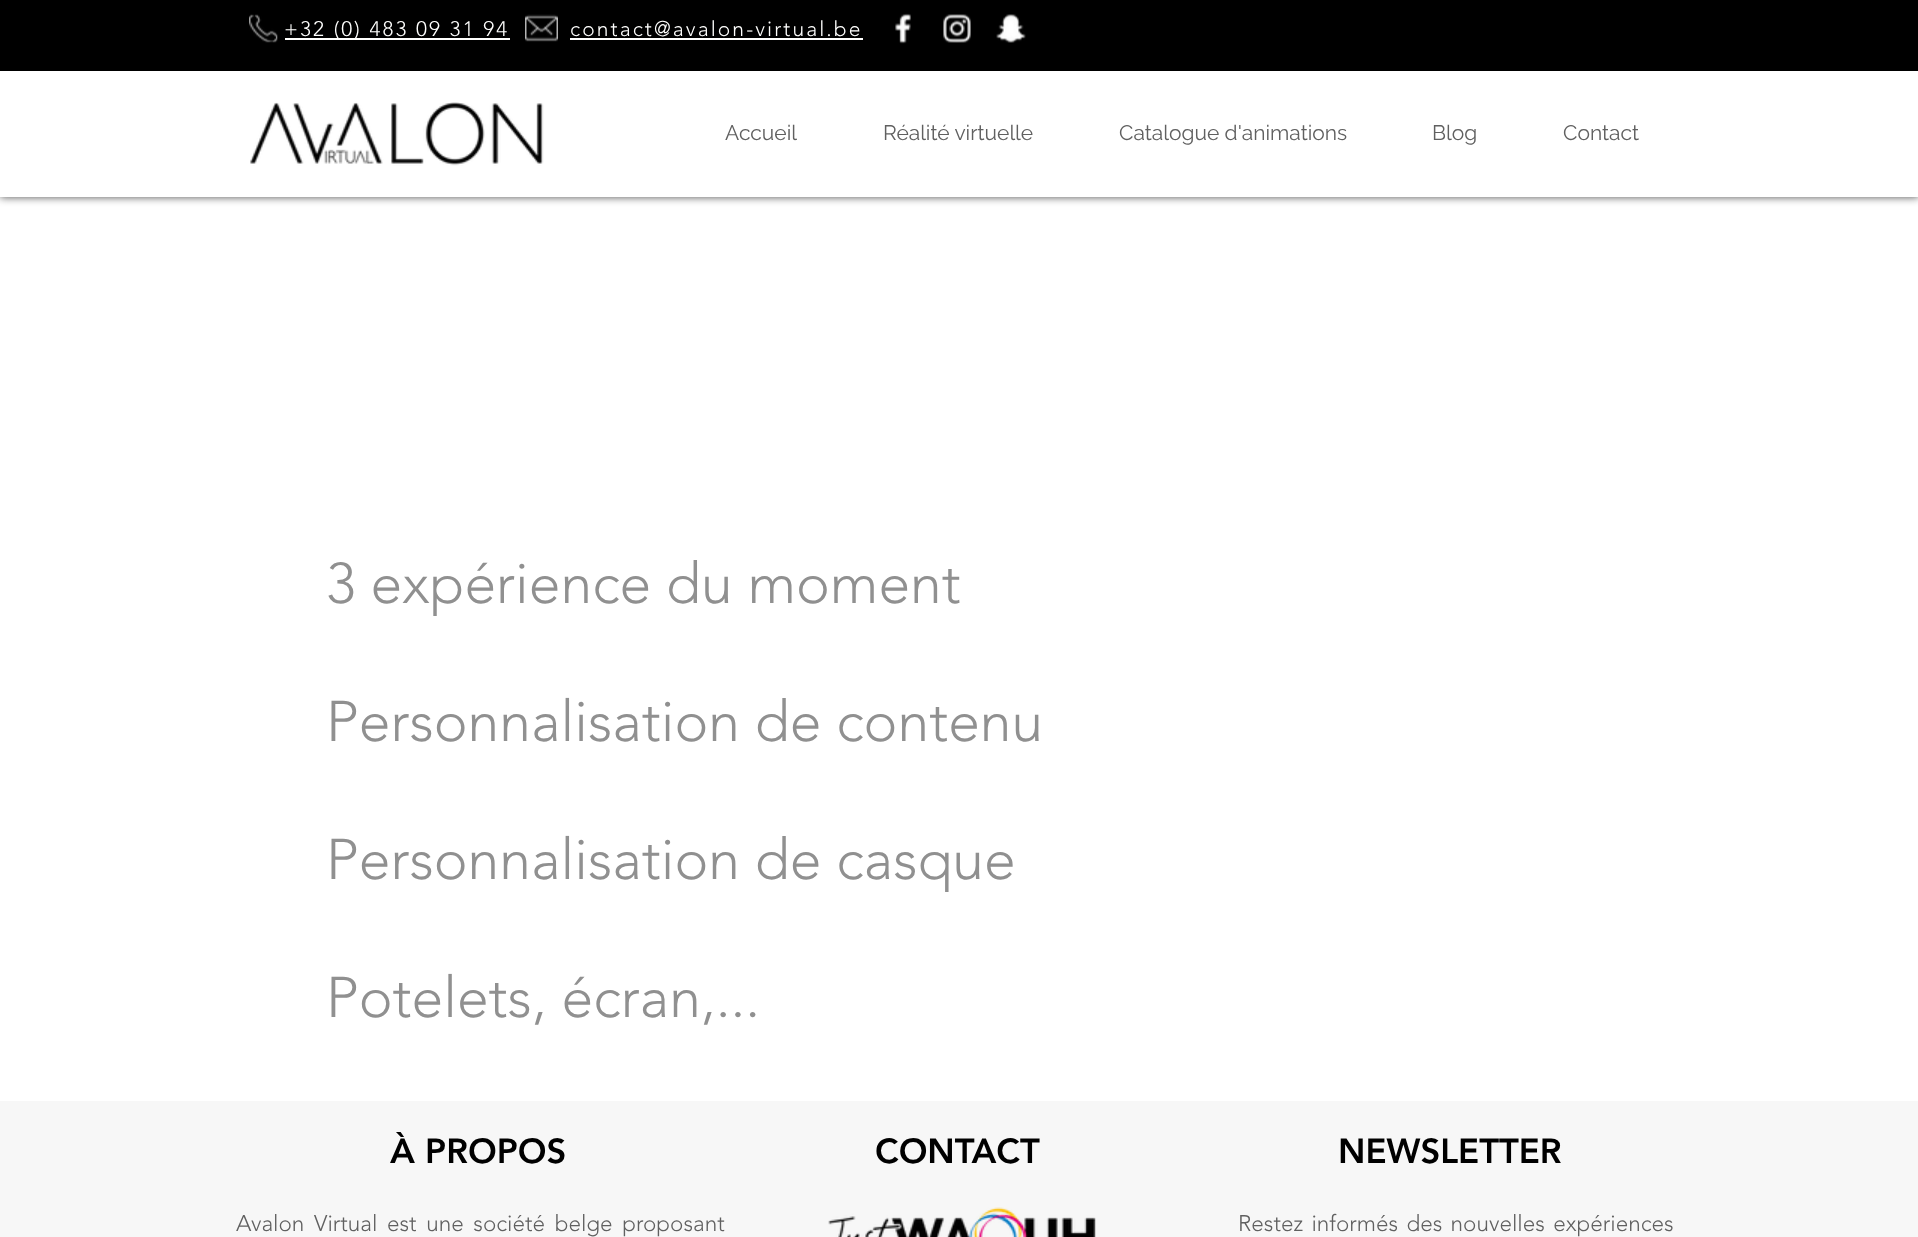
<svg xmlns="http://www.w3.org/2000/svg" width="1918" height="1237">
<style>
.a{font:300 21px 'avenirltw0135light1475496';letter-spacing:2.1px;fill:#fffffe}
.b{font:21px Raleway;fill:#606060}
.c{font:300 57px 'avenirltw0135light1475496';fill:#909090}
.d{font:900 34.5px 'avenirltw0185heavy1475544';fill:#000}
.e{font:300 22.5px 'avenirltw0135light1475496';fill:#606060}
</style>
<defs>
<clipPath id="clip1"><path d="M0 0h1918v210h-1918zm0 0h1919v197h-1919z" clip-rule="evenodd"/></clipPath>
</defs>
<rect width="100%" height="100%" fill="#fff"/>
<g clip-path="url(#clip1)">
<path fill="#000000b3" filter="blur(4px)" d="M0 0h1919v197H0z"/>
</g>
<path fill="#ffffff99" d="M0 196h1918v1H0z"/>
<path fill="#000" d="M0 0h1918v71H0z"/>
<image href="1.png" x="249" y="14" width="29" height="29"/>
<image href="2.png" x="525" y="14" width="33" height="28"/>
<image href="3.png" x="895" y="13" width="16" height="31"/>
<image href="4.png" x="943" y="14" width="28" height="29"/>
<image href="5.png" x="996" y="14" width="30" height="29"/>
<path fill="#fffffe" d="M285 38h225v2H285z"/>
<path fill="#fffffe" d="M570 38h293v2H570z"/>
<image href="6.png" x="250" y="102" width="294" height="64"/>
<path fill="#f7f7f7" d="M0 1101h1918v136H0z"/>
<image href="7.png" x="828" y="1207" width="268" height="30"/>
<text class="a" x="284" y="36">+32 (0) 483 09 31 94</text>
<text class="a" x="570" y="36">contact@avalon-virtual.be</text>
<text class="b" x="725" y="140">Accueil</text>
<text class="b" x="883" y="140">Réalité virtuelle</text>
<text class="b" x="1119" y="140">Catalogue d'animations</text>
<text class="b" x="1432" y="140">Blog</text>
<text class="b" x="1563" y="140">Contact</text>
<text class="c" x="326" y="603">3 expérience du moment</text>
<text class="c" x="326" y="741">Personnalisation de contenu</text>
<text class="c" x="326" y="879">Personnalisation de casque</text>
<text class="c" x="326" y="1017">Potelets, écran,...</text>
<text class="d" x="390" y="1163">À PROPOS</text>
<text class="d" x="875" y="1163">CONTACT</text>
<text class="d" x="1338" y="1163">NEWSLETTER</text>
<text class="e" x="236" y="1231" word-spacing="3.75">Avalon Virtual est une société belge proposant</text>
<text class="e" x="1238" y="1231" word-spacing="2.5">Restez informés des nouvelles expériences</text>
</svg>
